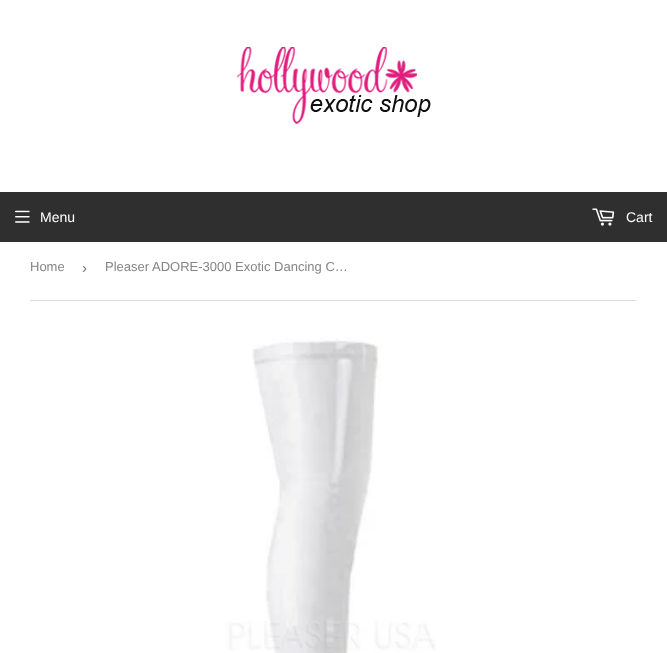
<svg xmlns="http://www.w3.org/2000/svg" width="667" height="653">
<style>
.a{font:14px Arimo;fill:#fff}
.b{font:13px Arimo;fill:#858585}
.c{font:15px Liberation Sans;fill:#767676}
</style>
<rect width="100%" height="100%" fill="#fff"/>
<image href="1.png" x="237" y="47" width="194" height="77"/>
<path fill="#2f2f2f" d="M0 192h667v50H0z"/>
<image href="2.png" x="15" y="210" width="15" height="13"/>
<image href="3.png" x="592" y="208" width="23" height="18"/>
<path fill="#dedede" d="M30 300h607v1H30z"/>
<image href="4.png" x="226" y="338" width="210" height="315"/>
<text class="a" x="40" y="222">Menu</text>
<text class="a" x="626" y="222">Cart</text>
<text class="b" x="30" y="271">Home</text>
<text class="c" x="82" y="273">›</text>
<text class="b" x="105" y="271">Pleaser ADORE-3000 Exotic Dancing C…</text>
</svg>
